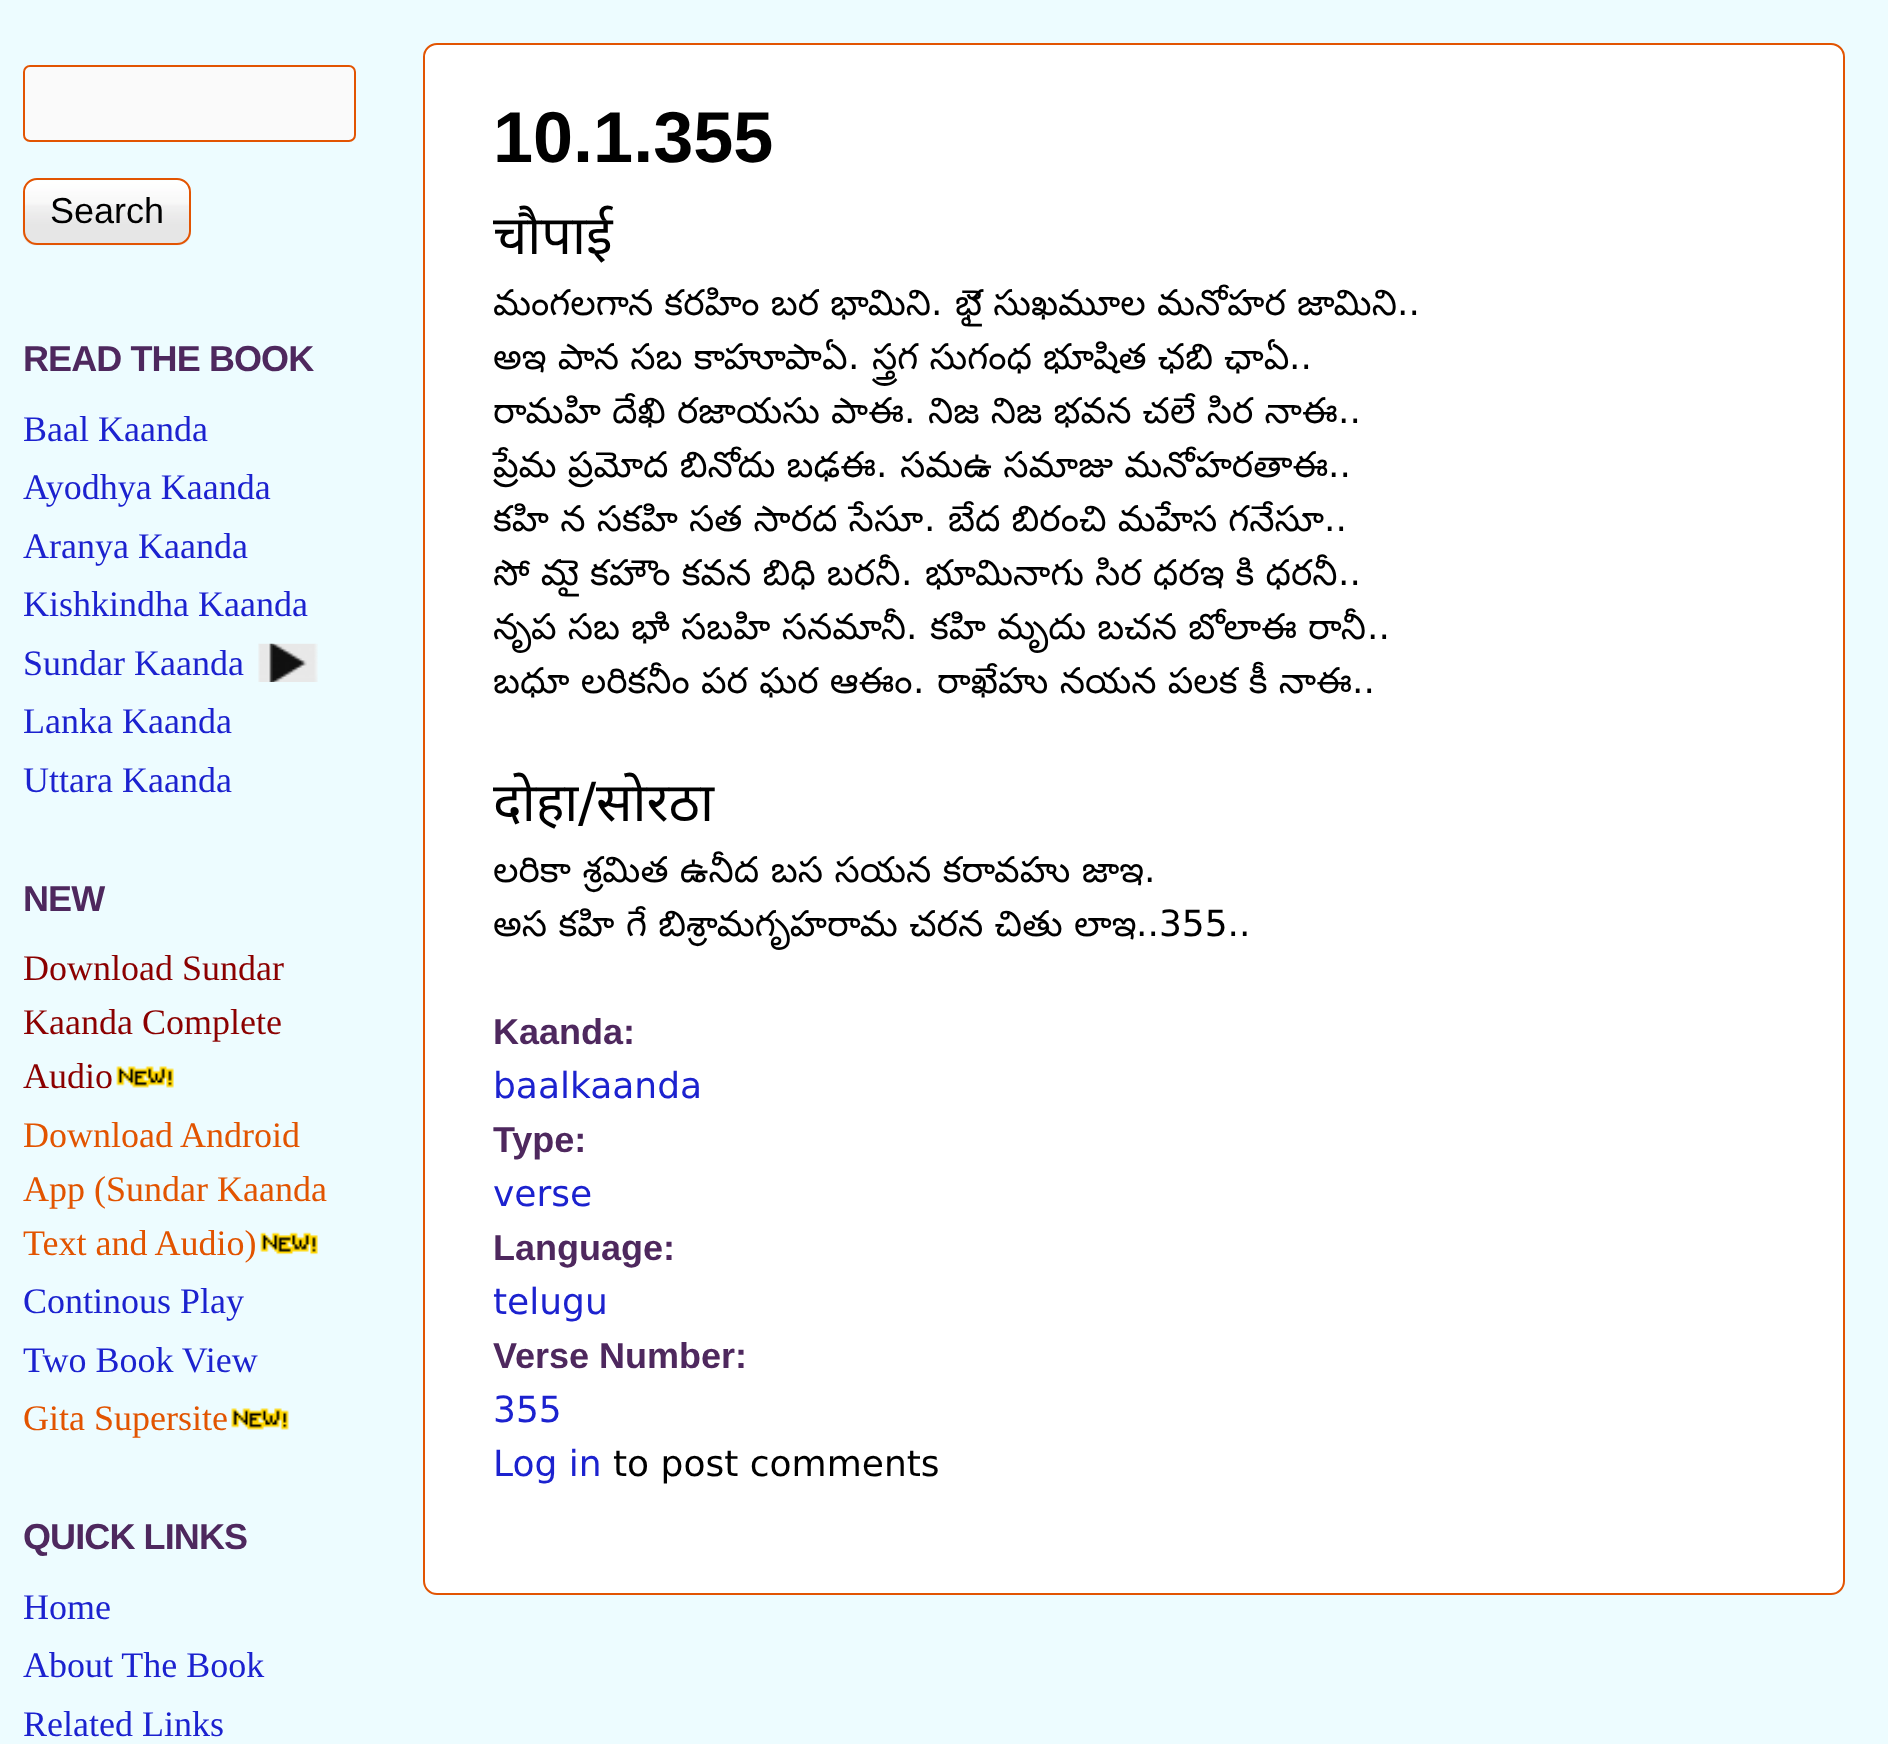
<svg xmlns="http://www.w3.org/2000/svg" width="1888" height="1744">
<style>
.a{font:36px Liberation Sans;fill:#000}
.b{font:bold 36px Liberation Sans;letter-spacing:-0.9px;fill:#4e285e}
.c{font:36px Liberation Serif;fill:#1c22cf}
.d{font:36px Liberation Serif;fill:#8b0000}
.e{font:36px Liberation Serif;fill:#e25400}
.f{font:bold 72px Liberation Sans;fill:#000}
.g{font:54px Noto Sans;fill:#000}
.h{font:36px Noto Sans Telugu;fill:#000}
.i{font:36px DejaVu Sans;fill:#000}
.j{font:54px DejaVu Sans;fill:#000}
.k{font:bold 36px Liberation Sans;fill:#4e285e}
.l{font:36px DejaVu Sans;fill:#1c22cf}
</style>
<rect width="100%" height="100%" fill="#edfcff"/>
<rect fill="#fafafa" stroke="#e25402" stroke-width="2" x="24" y="66" width="331" height="75" rx="6"/>
<image href="1.png" x="22" y="180" width="169" height="66"/>
<rect fill="none" stroke="#e25402" stroke-width="2" x="24" y="179" width="166" height="65" rx="13"/>
<image href="2.png" x="258" y="643" width="60" height="39"/>
<image href="3.png" x="116" y="1066" width="58" height="22"/>
<image href="4.png" x="260" y="1232" width="58" height="23"/>
<image href="5.png" x="231" y="1408" width="58" height="22"/>
<rect fill="#fff" stroke="#e25402" stroke-width="2" x="424" y="44" width="1420" height="1550" rx="13"/>
<text class="a" x="50" y="223">Search</text>
<text class="b" x="23" y="371">READ THE BOOK</text>
<text class="c" x="23" y="441">Baal Kaanda</text>
<text class="c" x="23" y="499">Ayodhya Kaanda</text>
<text class="c" x="23" y="558">Aranya Kaanda</text>
<text class="c" x="23" y="616">Kishkindha Kaanda</text>
<text class="c" x="23" y="675">Sundar Kaanda</text>
<text class="c" x="23" y="733">Lanka Kaanda</text>
<text class="c" x="23" y="792">Uttara Kaanda</text>
<text class="b" x="23" y="911">NEW</text>
<text class="d" x="23" y="980">Download Sundar</text>
<text class="d" x="23" y="1034">Kaanda Complete</text>
<text class="d" x="23" y="1088">Audio</text>
<text class="e" x="23" y="1147">Download Android</text>
<text class="e" x="23" y="1201">App (Sundar Kaanda</text>
<text class="e" x="23" y="1255">Text and Audio)</text>
<text class="c" x="23" y="1313">Continous Play</text>
<text class="c" x="23" y="1372">Two Book View</text>
<text class="e" x="23" y="1430">Gita Supersite</text>
<text class="b" x="23" y="1549">QUICK LINKS</text>
<text class="c" x="23" y="1619">Home</text>
<text class="c" x="23" y="1677">About The Book</text>
<text class="c" x="23" y="1736">Related Links</text>
<text class="f" x="493" y="162">10.1.355</text>
<text class="g" x="493" y="254">चौपाई</text>
<text class="h" x="493" y="315" word-spacing="1">మంగలగాన కరహిం బర భామిని</text>
<text class="i" x="931" y="315">.</text>
<text class="h" x="955" y="315" word-spacing="1">భై సుఖమూల మనోహర జామిని</text>
<text class="i" x="1397" y="315">..</text>
<text class="h" x="493" y="369" word-spacing="1">అఇ పాన సబ కాహూపాఏ</text>
<text class="i" x="848" y="369">.</text>
<text class="h" x="872" y="369" word-spacing="1">స్త్రగ సుగంధ భూషిత ఛబి ఛాఏ</text>
<text class="i" x="1289" y="369">..</text>
<text class="h" x="493" y="423" word-spacing="1">రామహి దేఖి రజాయసు పాఈ</text>
<text class="i" x="904" y="423">.</text>
<text class="h" x="928" y="423" word-spacing="1">నిజ నిజ భవన చలే సిర నాఈ</text>
<text class="i" x="1338" y="423">..</text>
<text class="h" x="493" y="477" word-spacing="1">ప్రేమ ప్రమోద బినోదు బఢఈ</text>
<text class="i" x="876" y="477">.</text>
<text class="h" x="900" y="477" word-spacing="1">సమఉ సమాజు మనోహరతాఈ</text>
<text class="i" x="1328" y="477">..</text>
<text class="h" x="493" y="531" word-spacing="1">కహి న సకహి సత సారద సేసూ</text>
<text class="i" x="924" y="531">.</text>
<text class="h" x="948" y="531" word-spacing="1">బేద బిరంచి మహేస గనేసూ</text>
<text class="i" x="1324" y="531">..</text>
<text class="h" x="493" y="585" word-spacing="1">సో మై కహౌం కవన బిధి బరనీ</text>
<text class="i" x="901" y="585">.</text>
<text class="h" x="925" y="585" word-spacing="1">భూమినాగు సిర ధరఇ కి ధరనీ</text>
<text class="i" x="1338" y="585">..</text>
<text class="h" x="493" y="639" word-spacing="1">నృప సబ భాి సబహి సనమానీ</text>
<text class="i" x="906" y="639">.</text>
<text class="h" x="930" y="639" word-spacing="1">కహి మృదు బచన బోలాఈ రానీ</text>
<text class="i" x="1367" y="639">..</text>
<text class="h" x="493" y="693" word-spacing="1">బధూ లరికనీం పర ఘర ఆఈం</text>
<text class="i" x="913" y="693">.</text>
<text class="h" x="937" y="693" word-spacing="1">రాఖేహు నయన పలక కీ నాఈ</text>
<text class="i" x="1352" y="693">..</text>
<text class="g" x="493" y="821">दोहा</text>
<text class="j" x="578" y="821">/</text>
<text class="g" x="596" y="821">सोरठा</text>
<text class="h" x="493" y="882" word-spacing="1.25">లరికా శ్రమిత ఉనీద బస సయన కరావహు జాఇ</text>
<text class="i" x="1144" y="882">.</text>
<text class="h" x="493" y="936" word-spacing="1.25">అస కహి గే బిశ్రామగృహరామ చరన చితు లాఇ</text>
<text class="i" x="1136" y="936">..355..</text>
<text class="k" x="493" y="1044">Kaanda:</text>
<text class="l" x="493" y="1098">baalkaanda</text>
<text class="k" x="493" y="1152">Type:</text>
<text class="l" x="493" y="1206">verse</text>
<text class="k" x="493" y="1260">Language:</text>
<text class="l" x="493" y="1314">telugu</text>
<text class="k" x="493" y="1368">Verse Number:</text>
<text class="l" x="493" y="1422">355</text>
<text class="l" x="493" y="1476">Log in</text>
<text class="i" x="613" y="1476">to post comments</text>
</svg>
